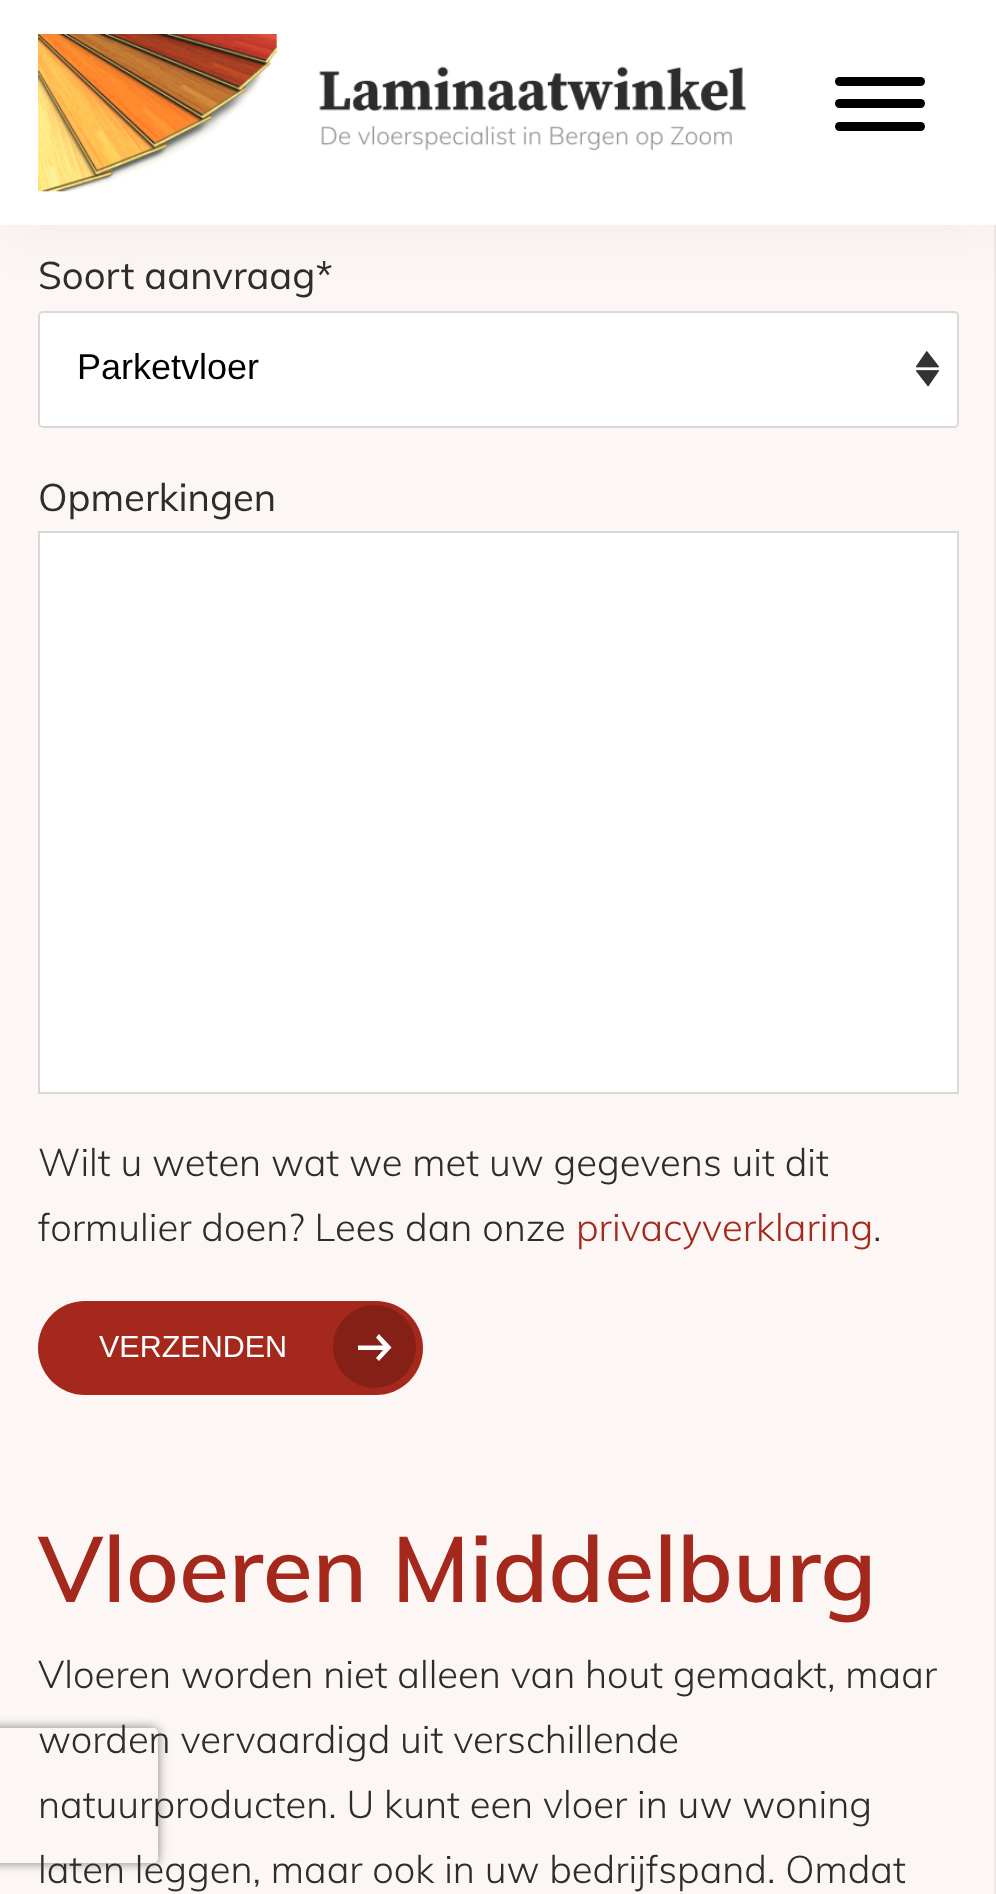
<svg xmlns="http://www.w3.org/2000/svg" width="996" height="1894">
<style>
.a{font:38.25px Muli;fill:#2d2d2d}
.b{font:36px Liberation Sans;fill:#000}
.c{font:300 38.25px Muli;fill:#2d2d2d}
.d{font:300 38.25px Muli;fill:#a5281c}
.e{font:30.5px Liberation Sans;fill:#fff}
.f{font:600 91.75px Muli;fill:#a5281c}
</style>
<defs>
<clipPath id="clip1"><path d="M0 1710h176v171h-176zm-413 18h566c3 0 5 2 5 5v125c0 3-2 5-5 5h-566c-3 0-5-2-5-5v-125c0-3 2-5 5-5z" clip-rule="evenodd"/></clipPath>
</defs>
<rect width="100%" height="100%" fill="#fcf6f5"/>
<rect fill="#fff" x="38" y="311" width="921" height="117" rx="5"/>
<image href="2.png" x="916" y="351" width="24" height="36"/>
<rect fill="none" stroke="#d9d9d9" stroke-width="2" x="39" y="312" width="919" height="115" rx="4"/>
<path fill="#0000000d" filter="blur(34px)" d="M0 0h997v225H0z"/>
<path fill="#fff" d="M0 0h996v225H0z"/>
<image href="1.png" x="38" y="34" width="708" height="158"/>
<rect fill="#000" x="835" y="122" width="90" height="9" rx="4.5"/>
<rect fill="#000" x="835" y="77" width="90" height="9" rx="4.5"/>
<rect fill="#000" x="835" y="99" width="90" height="9" rx="4.5"/>
<path fill="#fff" stroke="#d9d9d9" stroke-width="2" d="M39 532h919v561H39z"/>
<rect fill="#a5281c" x="38" y="1301" width="385" height="94" rx="47"/>
<circle fill="#842016" cx="374.5" cy="1346.5" r="41.5"/>
<path fill="#fff" d="M376 1337.5l7 8h-25v4.5h25l-7 8l3 3l12.5-13.5l-12.5-13.5z"/>
<g clip-path="url(#clip1)">
<rect fill="#808080" filter="blur(5.5px)" x="-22" y="1728" width="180" height="135" rx="5"/>
</g>
<path fill="#2d2d2d26" filter="blur(1px)" d="M995 225h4v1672H995z"/>
<text class="a" x="38" y="289">Soort aanvraag*</text>
<text class="b" x="77" y="379">Parketvloer</text>
<text class="a" x="38" y="511">Opmerkingen</text>
<text class="c" x="38" y="1176">Wilt u weten wat we met uw gegevens uit dit</text>
<text class="c" x="38" y="1241">formulier doen? Lees dan onze</text>
<text class="d" x="576" y="1241">privacyverklaring</text>
<text class="c" x="873" y="1241">.</text>
<text class="e" x="99" y="1357">VERZENDEN</text>
<text class="f" x="38" y="1602">Vloeren Middelburg</text>
<text class="c" x="38" y="1688">Vloeren worden niet alleen van hout gemaakt, maar</text>
<text class="c" x="38" y="1753">worden vervaardigd uit verschillende</text>
<text class="c" x="38" y="1818">natuurproducten. U kunt een vloer in uw woning</text>
<text class="c" x="38" y="1883">laten leggen, maar ook in uw bedrijfspand. Omdat</text>
</svg>
